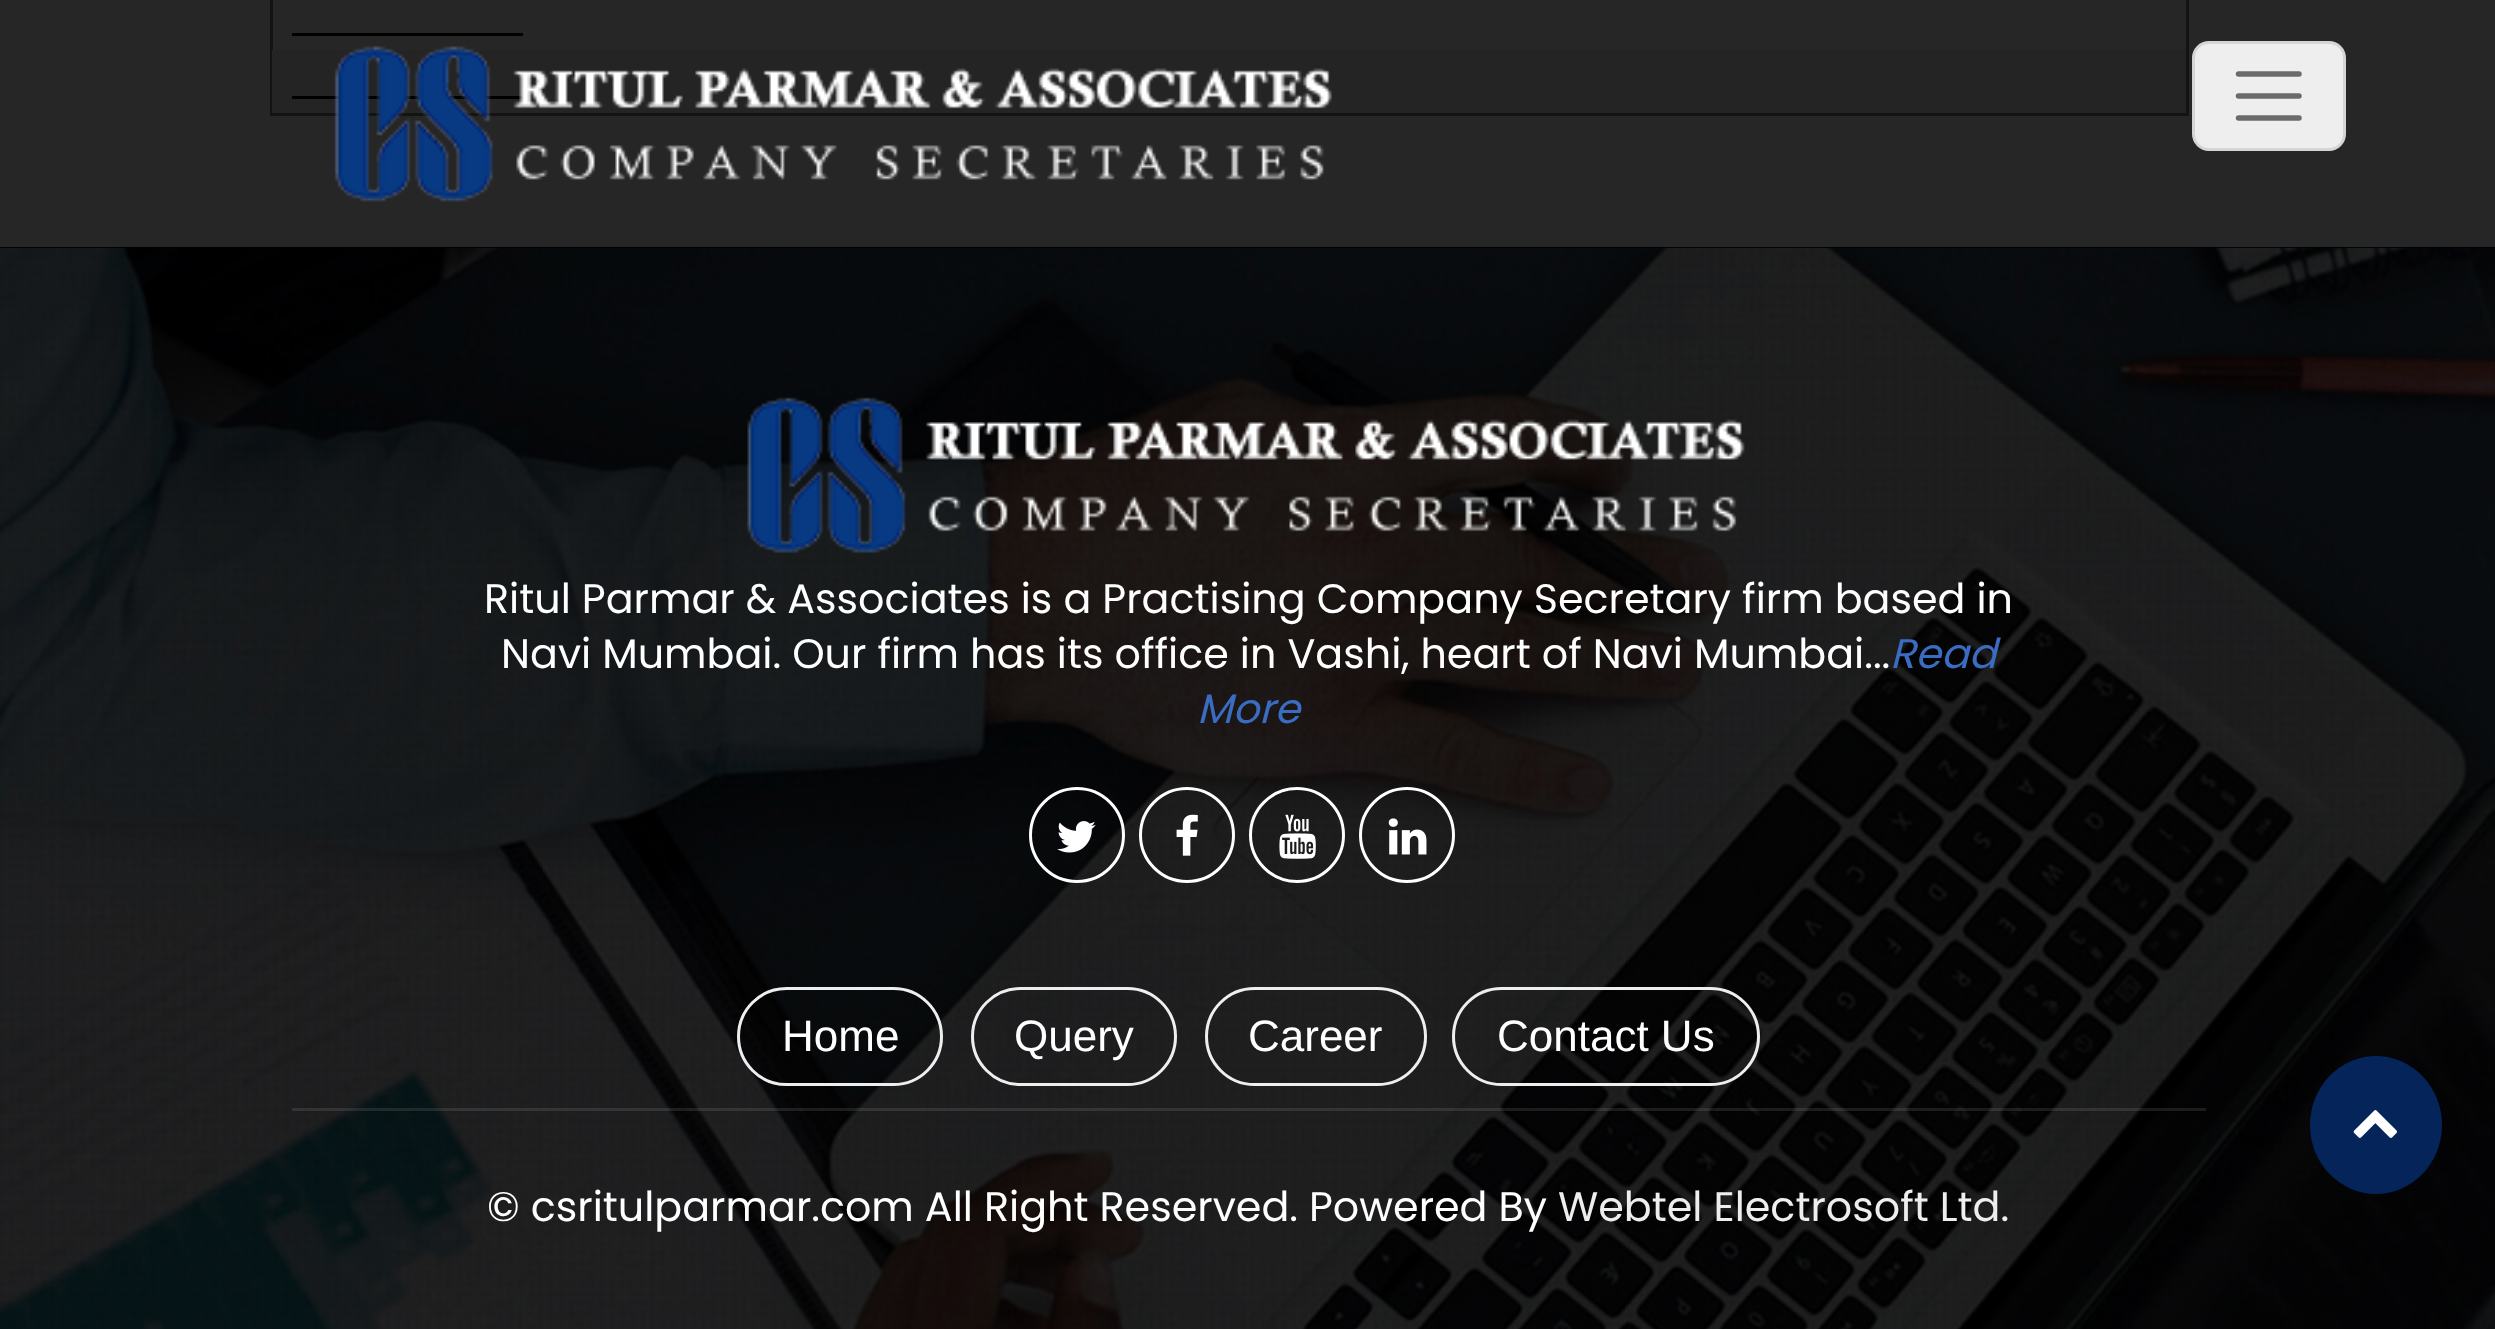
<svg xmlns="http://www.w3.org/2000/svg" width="2495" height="1329">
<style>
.a{font:41.25px Poppins;fill:#fff}
.b{font:italic 41.25px Poppins;fill:#3a6cc1}
.c{font:44px Liberation Sans;fill:#fff}
.d{font:41.25px Poppins;fill:#eee}
</style>
<rect width="100%" height="100%" fill="#fff"/>
<path fill="none" stroke="#828282" stroke-width="3" d="M271.5 -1.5h1916v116H271.5z"/>
<path fill="#000" d="M292 33h231v3H292z"/>
<path fill="#f2f2f2" d="M272 50h1914v63H272z"/>
<path fill="#000" d="M292 96h231v3H292z"/>
<image href="2.png" x="0" y="247" width="2495" height="1082"/>
<path fill="#000000d9" d="M0 0h2495v248H0z"/>
<image href="1.png" x="334" y="46" width="998" height="156"/>
<rect fill="#eee" x="2192" y="41" width="154" height="110" rx="17"/>
<rect fill="none" stroke="#0000001a" stroke-width="3" x="2193.5" y="42.5" width="151" height="107" rx="15.5"/>
<path fill="none" stroke="#6b6b6b" stroke-width="5.5" stroke-linecap="round" d="M2238.5 74h60.5m-60.5 22h60.5m-60.5 22h60.5"/>
<image href="3.png" x="747" y="397" width="998" height="157"/>
<circle fill="none" stroke="#fff" stroke-width="3" cx="1077" cy="835" r="46.5"/>
<image href="4.png" x="1057" y="821" width="39" height="32"/>
<circle fill="none" stroke="#fff" stroke-width="3" cx="1187" cy="835" r="46.5"/>
<image href="5.png" x="1176" y="814" width="22" height="42"/>
<circle fill="none" stroke="#fff" stroke-width="3" cx="1297" cy="835" r="46.5"/>
<image href="6.png" x="1279" y="814" width="37" height="45"/>
<circle fill="none" stroke="#fff" stroke-width="3" cx="1407" cy="835" r="46.5"/>
<image href="7.png" x="1388" y="818" width="39" height="37"/>
<rect fill="none" stroke="#eee" stroke-width="3" x="738.5" y="988.5" width="203" height="96" rx="48"/>
<rect fill="none" stroke="#eee" stroke-width="3" x="972.5" y="988.5" width="203" height="96" rx="48"/>
<rect fill="none" stroke="#eee" stroke-width="3" x="1206.5" y="988.5" width="219" height="96" rx="48"/>
<rect fill="none" stroke="#eee" stroke-width="3" x="1453.5" y="988.5" width="305" height="96" rx="48"/>
<path fill="#ffffff1a" d="M292 1108h1914v3H292z"/>
<ellipse fill="#04245a" cx="2376" cy="1125" rx="66" ry="69"/>
<image href="8.png" x="2353" y="1110" width="44" height="28"/>
<text class="a" x="484" y="613">Ritul Parmar &amp; Associates is a Practising Company Secretary firm based in</text>
<text class="a" x="501" y="668">Navi Mumbai. Our firm has its office in Vashi, heart of Navi Mumbai...</text>
<text class="b" x="1890" y="668">Read</text>
<text class="b" x="1197" y="723">More</text>
<text class="c" x="782" y="1051">Home</text>
<text class="c" x="1014" y="1051">Query</text>
<text class="c" x="1248" y="1051">Career</text>
<text class="c" x="1497" y="1051">Contact Us</text>
<text class="a" x="487" y="1221">© csritulparmar.com All Right Reserved. Powered By</text>
<text class="d" x="1558" y="1221">Webtel Electrosoft Ltd.</text>
</svg>
